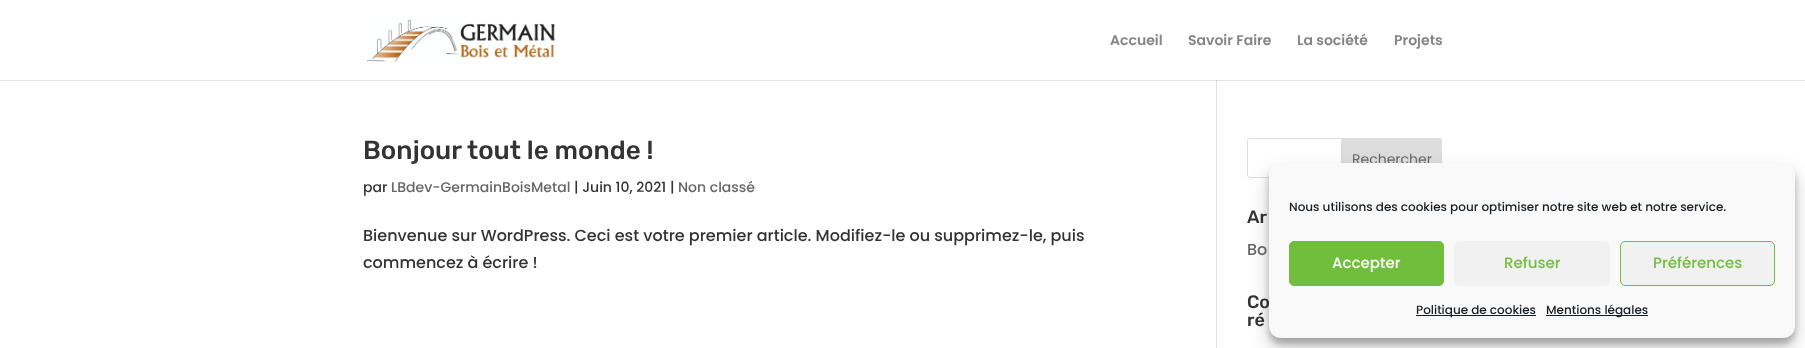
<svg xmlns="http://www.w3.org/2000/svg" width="1805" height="348">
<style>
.a{font:600 14px Poppins;fill:#858585}
.b{font:300 26px Rubik;fill:#333}
.c{font:500 14px Poppins;fill:#333}
.d{font:500 14px Poppins;fill:#666}
.e{font:500 16px Poppins;fill:#333}
.f{font:14px Poppins;fill:#666}
.g{font:300 18px Rubik;fill:#333}
.h{font:500 16px Poppins;fill:#666}
.i{font:500 12px Poppins;fill:#191e23}
.j{font:500 15px Poppins;fill:#fff}
.k{font:500 15px Poppins;fill:#71be3c}
</style>
<rect width="100%" height="100%" fill="#fff"/>
<path fill="#e6e6e6" d="M0 80h1805v1H0z"/>
<image href="1.png" x="367" y="19" width="189" height="43"/>
<path fill="#e2e2e2" d="M1216 80h1v268H1216z"/>
<path fill="#cbcbcb" d="M1216 80h1v1H1216z"/>
<rect fill="none" stroke="#ddd" x="1247.5" y="138.5" width="194" height="39" rx="2.5"/>
<path fill="#ddd" stroke="#ddd" d="M1341.5 138.5h97.5c1.5 0 2.5 1 2.5 2.5v34c0 1.5-1 2.5-2.5 2.5h-97.5z"/>
<rect fill="#0000003b" filter="blur(3px)" x="1269" y="169" width="526" height="175" rx="12"/>
<rect fill="#00000030" filter="blur(10px)" x="1269" y="173" width="526" height="175" rx="12"/>
<text class="a" x="1110" y="45">Accueil</text>
<text class="a" x="1188" y="45">Savoir Faire</text>
<text class="a" x="1297" y="45">La société</text>
<text class="a" x="1394" y="45">Projets</text>
<text class="b" x="363" y="159">Bonjour tout le monde !</text>
<text class="c" x="363" y="192">par</text>
<text class="d" x="391" y="192">LBdev-GermainBoisMetal</text>
<text class="c" x="574" y="192">| Juin 10, 2021 |</text>
<text class="d" x="678" y="192">Non classé</text>
<text class="e" x="363" y="241">Bienvenue sur WordPress. Ceci est votre premier article. Modifiez-le ou supprimez-le, puis</text>
<text class="e" x="363" y="268">commencez à écrire !</text>
<text class="f" x="1352" y="164">Rechercher</text>
<text class="g" x="1247" y="223">Ar</text>
<text class="h" x="1247" y="255">Bo</text>
<text class="g" x="1247" y="308">Co</text>
<text class="g" x="1247" y="326">ré</text>
<rect fill="#f9f9f9" x="1269" y="163" width="526" height="175" rx="12"/>
<text class="i" x="1289" y="211">Nous utilisons des cookies pour optimiser notre site web et notre service.</text>
<rect fill="#71be3c" stroke="#71be3c" x="1289.5" y="241.5" width="154" height="44" rx="4.5"/>
<text class="j" x="1332" y="268">Accepter</text>
<rect fill="#f1f1f1" x="1454" y="241" width="156" height="45" rx="5"/>
<text class="k" x="1504" y="268">Refuser</text>
<rect fill="#f1f1f1" stroke="#71be3c" x="1620.5" y="241.5" width="154" height="44" rx="4.5"/>
<text class="k" x="1653" y="268">Préférences</text>
<path fill="#191e23" d="M1416 315h120v1H1416z"/>
<text class="i" x="1416" y="314">Politique de cookies</text>
<path fill="#191e23" d="M1546 315h102v1H1546z"/>
<text class="i" x="1546" y="314">Mentions légales</text>
</svg>
